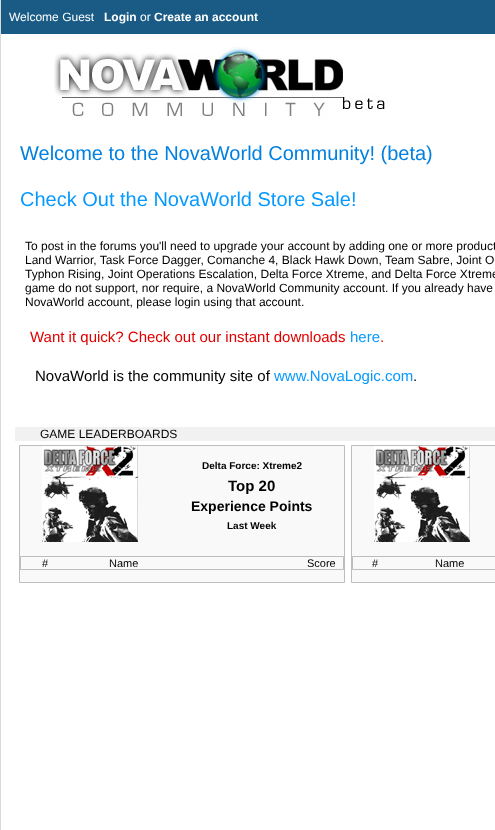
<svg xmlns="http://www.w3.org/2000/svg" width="495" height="830">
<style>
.a{font:12px Liberation Sans;fill:#fff}
.b{font:bold 12px Liberation Sans;fill:#fff}
.c{font:20px Liberation Sans;fill:#0080e0}
.d{font:20px Liberation Sans;fill:#0699fe}
.e{font:12px Liberation Sans;fill:#000}
.f{font:15px Liberation Sans;fill:#e00000}
.g{font:15px Liberation Sans;fill:#0699fe}
.h{font:15px Liberation Sans;fill:#000}
.i{font:bold 10px Liberation Sans;fill:#000}
.j{font:bold 15px Liberation Sans;fill:#000}
.k{font:bold 14px Liberation Sans;fill:#000}
.l{font:11px Liberation Sans;fill:#000}
</style>
<rect width="100%" height="100%" fill="#195b85"/>
<path fill="#d9d9d9" d="M0 0h1v830H0z"/>
<path fill="#fff" d="M1 34h494v796H1z"/>
<image href="1.png" x="54" y="46" width="335" height="72"/>
<path fill="#f1f1f1" d="M15 427h480v14H15z"/>
<path fill="#f9f9f9" stroke="#bdbdbd" d="M19.5 445.5h325v137H19.5z"/>
<image href="2.png" x="42" y="446" width="96" height="96"/>
<path fill="none" stroke="#bdbdbd" d="M20.5 556.5h323v13H20.5z"/>
<path fill="#f9f9f9" stroke="#bdbdbd" d="M351.5 445.5h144v137H351.5z"/>
<image href="2.png" x="374" y="446" width="96" height="96"/>
<path fill="none" stroke="#bdbdbd" d="M352.5 556.5h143v13H352.5z"/>
<text class="a" x="9" y="21">Welcome Guest</text>
<text class="b" x="104" y="21">Login</text>
<text class="a" x="140" y="21">or</text>
<text class="b" x="154" y="21">Create an account</text>
<text class="c" x="20" y="160">Welcome to the NovaWorld Community! (beta)</text>
<text class="d" x="20" y="206">Check Out the NovaWorld Store Sale!</text>
<text class="e" x="25" y="250">To post in the forums you'll need to upgrade your account by adding one or more product</text>
<text class="e" x="25" y="264">Land Warrior, Task Force Dagger, Comanche 4, Black Hawk Down, Team Sabre, Joint O</text>
<text class="e" x="25" y="278">Typhon Rising, Joint Operations Escalation, Delta Force Xtreme, and Delta Force Xtreme</text>
<text class="e" x="25" y="292">game do not support, nor require, a NovaWorld Community account. If you already have</text>
<text class="e" x="25" y="306">NovaWorld account, please login using that account.</text>
<text class="f" x="30" y="342">Want it quick? Check out our instant downloads</text>
<text class="g" x="350" y="342">here</text>
<text class="f" x="380" y="342">.</text>
<text class="h" x="35" y="381">NovaWorld is the community site of</text>
<text class="g" x="274" y="381">www.NovaLogic.com</text>
<text class="h" x="413" y="381">.</text>
<text class="e" x="40" y="438">GAME LEADERBOARDS</text>
<text class="i" x="202" y="469">Delta Force: Xtreme2</text>
<text class="j" x="228" y="491">Top 20</text>
<text class="k" x="191" y="511">Experience Points</text>
<text class="i" x="227" y="529">Last Week</text>
<text class="l" x="42" y="567">#</text>
<text class="l" x="109" y="567">Name</text>
<text class="l" x="307" y="567">Score</text>
<text class="l" x="372" y="567">#</text>
<text class="l" x="435" y="567">Name</text>
</svg>
